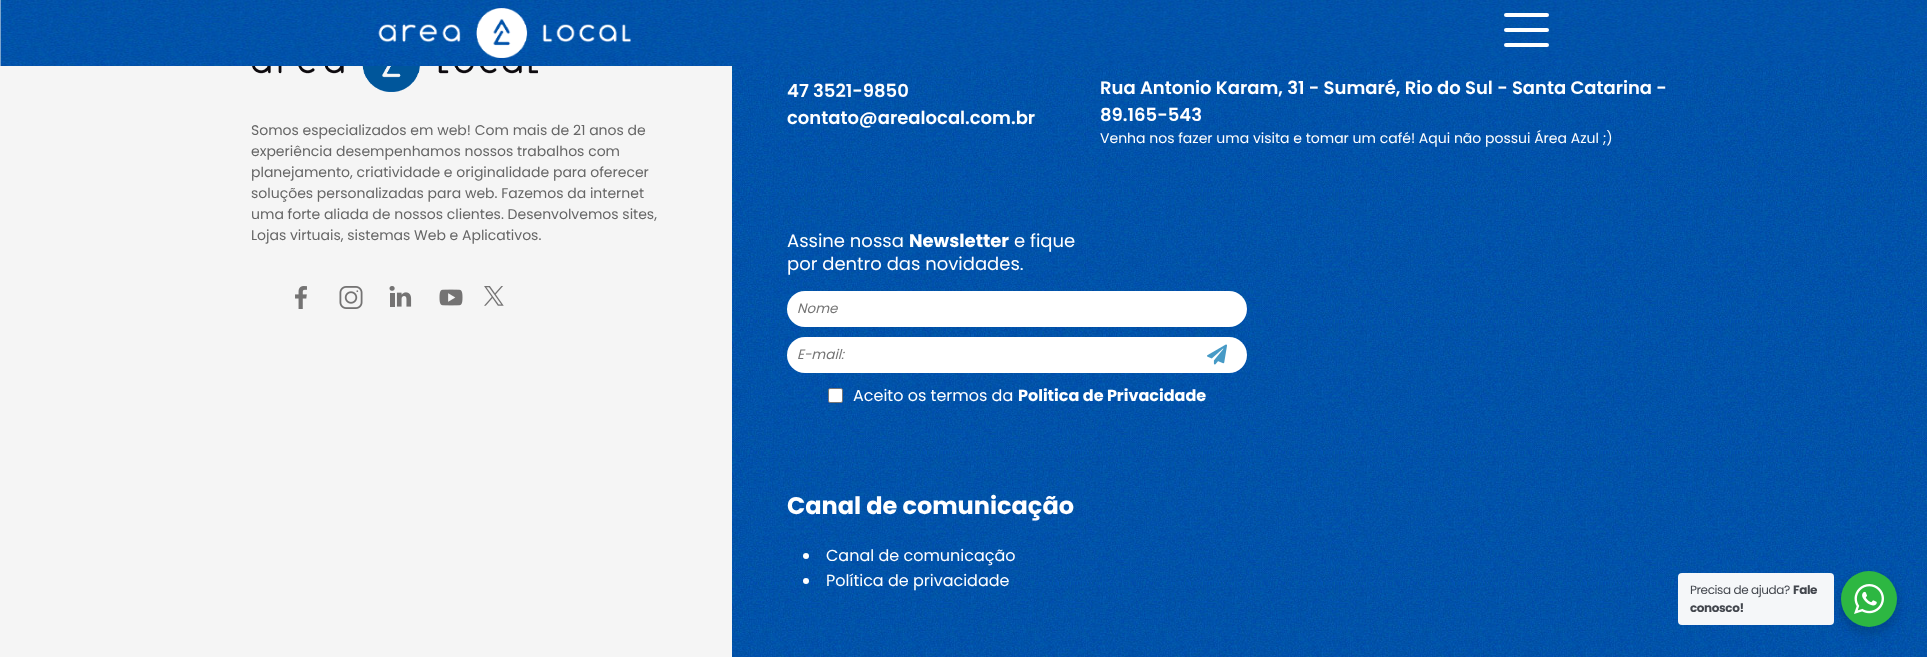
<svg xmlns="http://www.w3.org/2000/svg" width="1927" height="657">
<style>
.a{font:14px Poppins;fill:#666}
.b{font:600 18px Poppins;fill:#fff}
.c{font:14px Poppins;fill:#fff}
.d{font:18px Poppins;fill:#fff}
.e{font:bold 18px Poppins;fill:#fff}
.f{font:italic 13.5px Poppins;fill:#757575}
.g{font:16px Poppins;fill:#fff}
.h{font:bold 16px Poppins;fill:#fff}
.i{font:bold 24px Poppins;fill:#fff}
.j{font:12px Poppins;letter-spacing:-0.4px;fill:#43474e}
.k{font:bold 12px Poppins;letter-spacing:-0.4px;fill:#43474e}
</style>
<rect width="100%" height="100%" fill="#f5f5f5"/>
<image href="1.png" x="0" y="0" width="1927" height="66"/>
<image href="2.png" x="378" y="8" width="253" height="50"/>
<rect fill="#fff" x="1504" y="13" width="45" height="4" rx="2"/>
<rect fill="#fff" x="1504" y="28" width="45" height="4" rx="2"/>
<rect fill="#fff" x="1504" y="43" width="45" height="4" rx="2"/>
<image href="3.png" x="251" y="66" width="287" height="26"/>
<image href="4.png" x="295" y="286" width="12" height="23"/>
<image href="5.png" x="339" y="286" width="24" height="23"/>
<image href="6.png" x="389" y="286" width="23" height="21"/>
<image href="7.png" x="439" y="289" width="24" height="17"/>
<image href="8.png" x="484" y="286" width="20" height="20"/>
<image href="9.png" x="732" y="66" width="1195" height="591"/>
<rect fill="#fff" x="787" y="291" width="460" height="36" rx="18"/>
<rect fill="#fff" x="787" y="337" width="460" height="36" rx="18"/>
<image href="10.png" x="1207" y="344" width="20" height="21"/>
<rect fill="#fff" stroke="#767676" x="828.5" y="388.5" width="14" height="14" rx="1.5"/>
<circle fill="#fff" cx="806" cy="556" r="3"/>
<circle fill="#fff" cx="806" cy="581" r="3"/>
<rect fill="#00000024" filter="blur(4px)" x="1839" y="575" width="60" height="60" rx="30"/>
<rect fill="#f5f7f9" x="1678" y="573" width="156" height="52" rx="4"/>
<circle fill="#2db742" cx="1869" cy="599" r="28"/>
<image href="11.png" x="1854" y="584" width="30" height="30"/>
<text class="a" x="251" y="135">Somos especializados em web! Com mais de 21 anos de</text>
<text class="a" x="251" y="156">experiência desempenhamos nossos trabalhos com</text>
<text class="a" x="251" y="177">planejamento, criatividade e originalidade para oferecer</text>
<text class="a" x="251" y="198">soluções personalizadas para web. Fazemos da internet</text>
<text class="a" x="251" y="219">uma forte aliada de nossos clientes. Desenvolvemos sites,</text>
<text class="a" x="251" y="240">Lojas virtuais, sistemas Web e Aplicativos.</text>
<text class="b" x="787" y="97">47 3521-9850</text>
<text class="b" x="787" y="124">contato@arealocal.com.br</text>
<text class="b" x="1100" y="94">Rua Antonio Karam, 31 - Sumaré, Rio do Sul - Santa Catarina -</text>
<text class="b" x="1100" y="121">89.165-543</text>
<text class="c" x="1100" y="143">Venha nos fazer uma visita e tomar um café! Aqui não possui Área Azul ;)</text>
<text class="d" x="787" y="247">Assine nossa</text>
<text class="e" x="909" y="247">Newsletter</text>
<text class="d" x="1014" y="247">e fique</text>
<text class="d" x="787" y="270">por dentro das novidades.</text>
<text class="f" x="797" y="313">Nome</text>
<text class="f" x="797" y="359">E-mail:</text>
<text class="g" x="853" y="401">Aceito os termos da</text>
<text class="h" x="1018" y="401">Politica de Privacidade</text>
<text class="i" x="787" y="514">Canal de comunicação</text>
<text class="g" x="826" y="561">Canal de comunicação</text>
<text class="g" x="826" y="586">Política de privacidade</text>
<text class="j" x="1690" y="594">Precisa de ajuda?</text>
<text class="k" x="1793" y="594">Fale</text>
<text class="k" x="1690" y="612">conosco!</text>
</svg>
